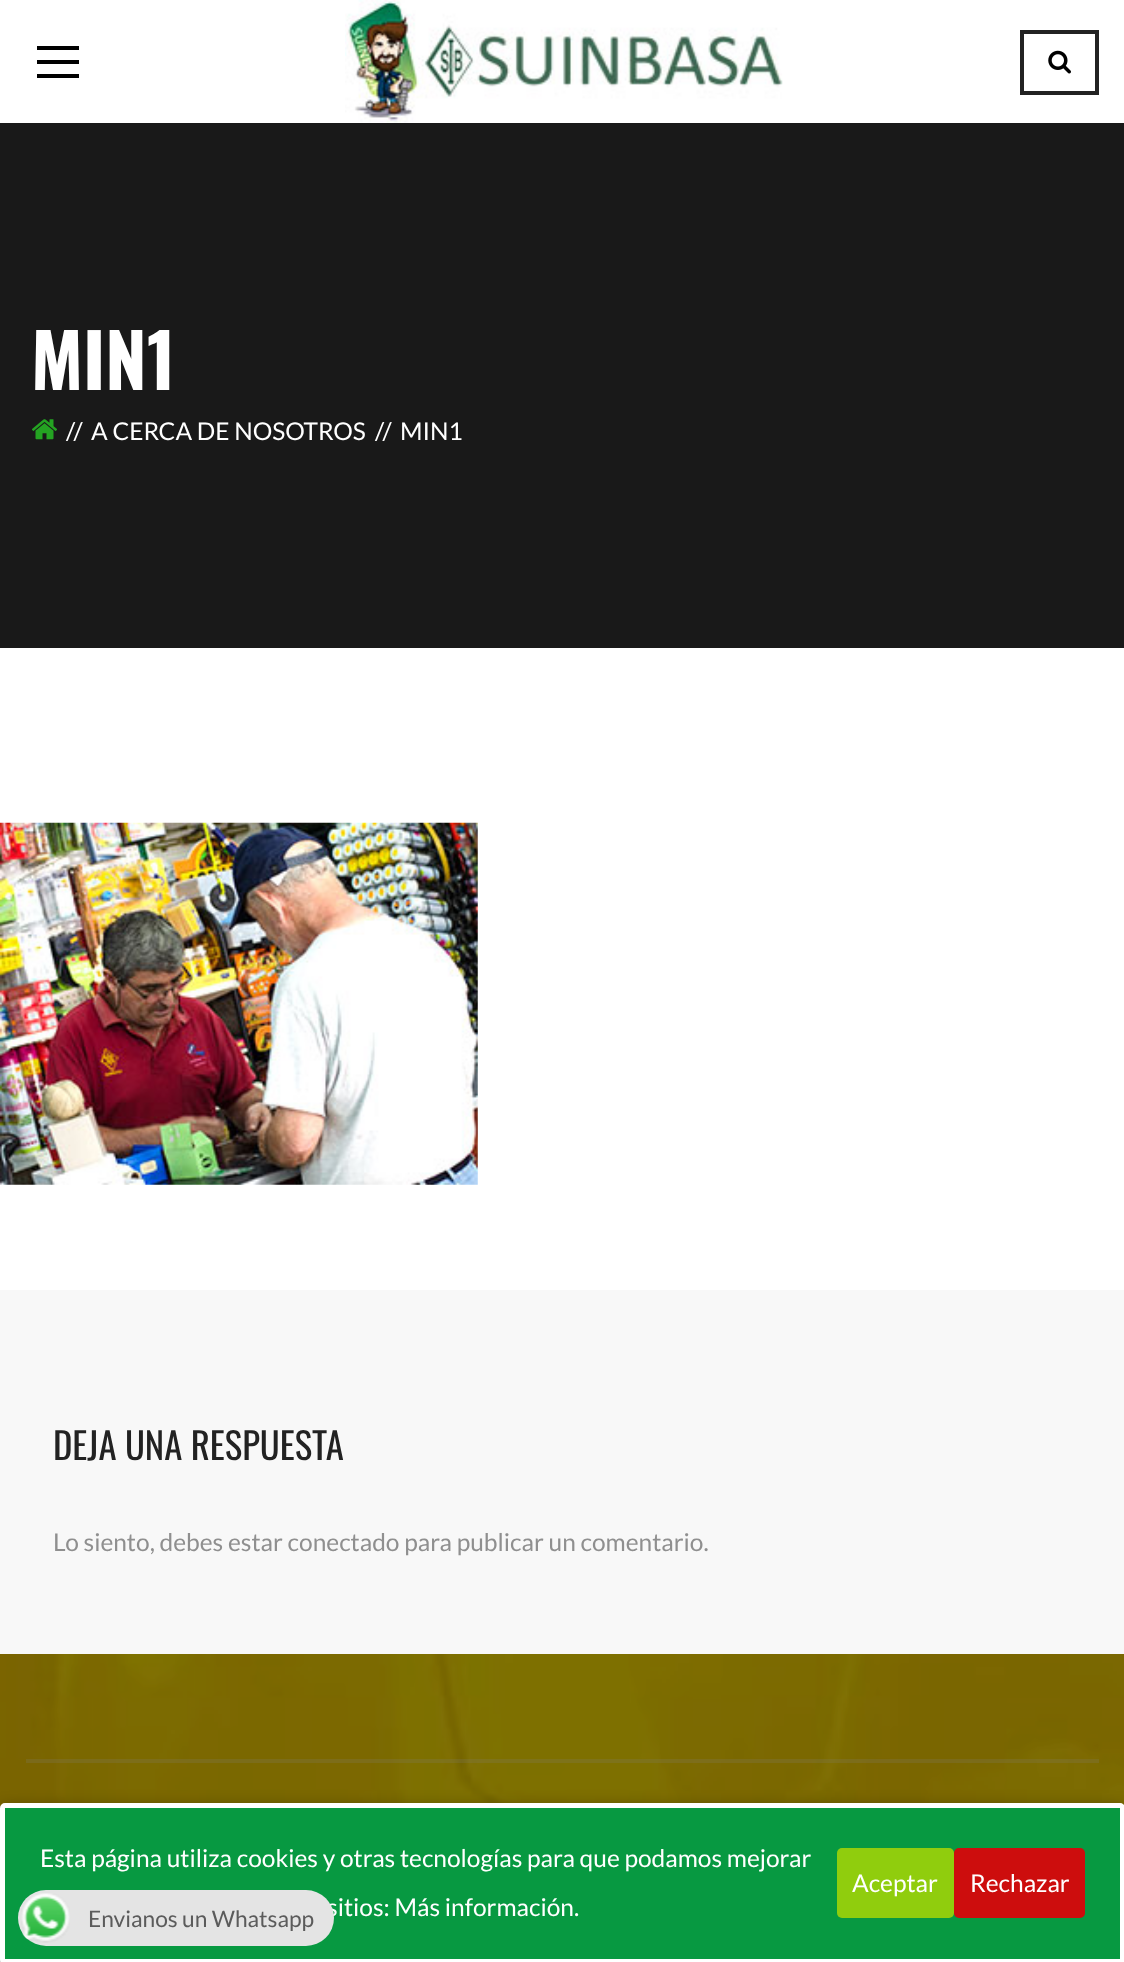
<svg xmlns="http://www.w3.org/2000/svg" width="1124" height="1962">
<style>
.a{font:bold 74px Oswald;fill:#fff}
.b{font:24.5px Lato;fill:#fff}
.c{font:36.75px Oswald;fill:#222}
.d{font:24.5px Lato;fill:#8f8f8f}
.e{font:22.75px Lato;fill:#5b5b5b}
</style>
<rect width="100%" height="100%" fill="#fff"/>
<path fill="#000" d="M37 46h42v4H37z"/>
<path fill="#000" d="M37 60h42v4H37z"/>
<path fill="#000" d="M37 74h42v4H37z"/>
<image href="1.png" x="345" y="0" width="438" height="123"/>
<path fill="none" stroke="#222" stroke-width="4" d="M1022 32h75v61H1022z"/>
<image href="2.png" x="1048" y="50" width="23" height="24"/>
<path fill="#191919" d="M0 123h1124v525H0z"/>
<image href="3.png" x="32" y="419" width="25" height="21"/>
<image href="4.png" x="0" y="822" width="478" height="363"/>
<path fill="#f8f8f8" d="M0 1290h1124v364H0z"/>
<image href="5.png" x="0" y="1654" width="1124" height="154"/>
<path fill="#80808033" d="M26 1759h1073v4H26z"/>
<rect fill="#00000066" filter="blur(8px)" y="1808" width="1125" height="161" rx="5"/>
<rect fill="#079941" stroke="#fff" stroke-width="5" x="2.5" y="1805.5" width="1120" height="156" rx="2.5"/>
<rect fill="#90cd0d" x="837" y="1848" width="117" height="70" rx="5"/>
<rect fill="#cd0d0d" x="954" y="1848" width="131" height="70" rx="5"/>
<text class="a" x="31" y="390">MIN1</text>
<text class="b" x="66" y="440">//</text>
<text class="b" x="91" y="440">A CERCA DE NOSOTROS</text>
<text class="b" x="375" y="440">//</text>
<text class="b" x="400" y="440">MIN1</text>
<text class="c" x="53" y="1460">DEJA UNA RESPUESTA</text>
<text class="d" x="53" y="1551">Lo siento, debes estar conectado para publicar un comentario.</text>
<text class="b" x="40" y="1867">Esta página utiliza cookies y otras tecnologías para que podamos mejorar</text>
<text class="b" x="327" y="1916">sitios: Más información.</text>
<text class="b" x="852" y="1892">Aceptar</text>
<text class="b" x="970" y="1892">Rechazar</text>
<rect fill="#e4e4e4" x="18" y="1890" width="316" height="56" rx="28"/>
<image href="6.png" x="21" y="1893" width="49" height="50"/>
<text class="e" x="88" y="1927">Envianos un Whatsapp</text>
</svg>
